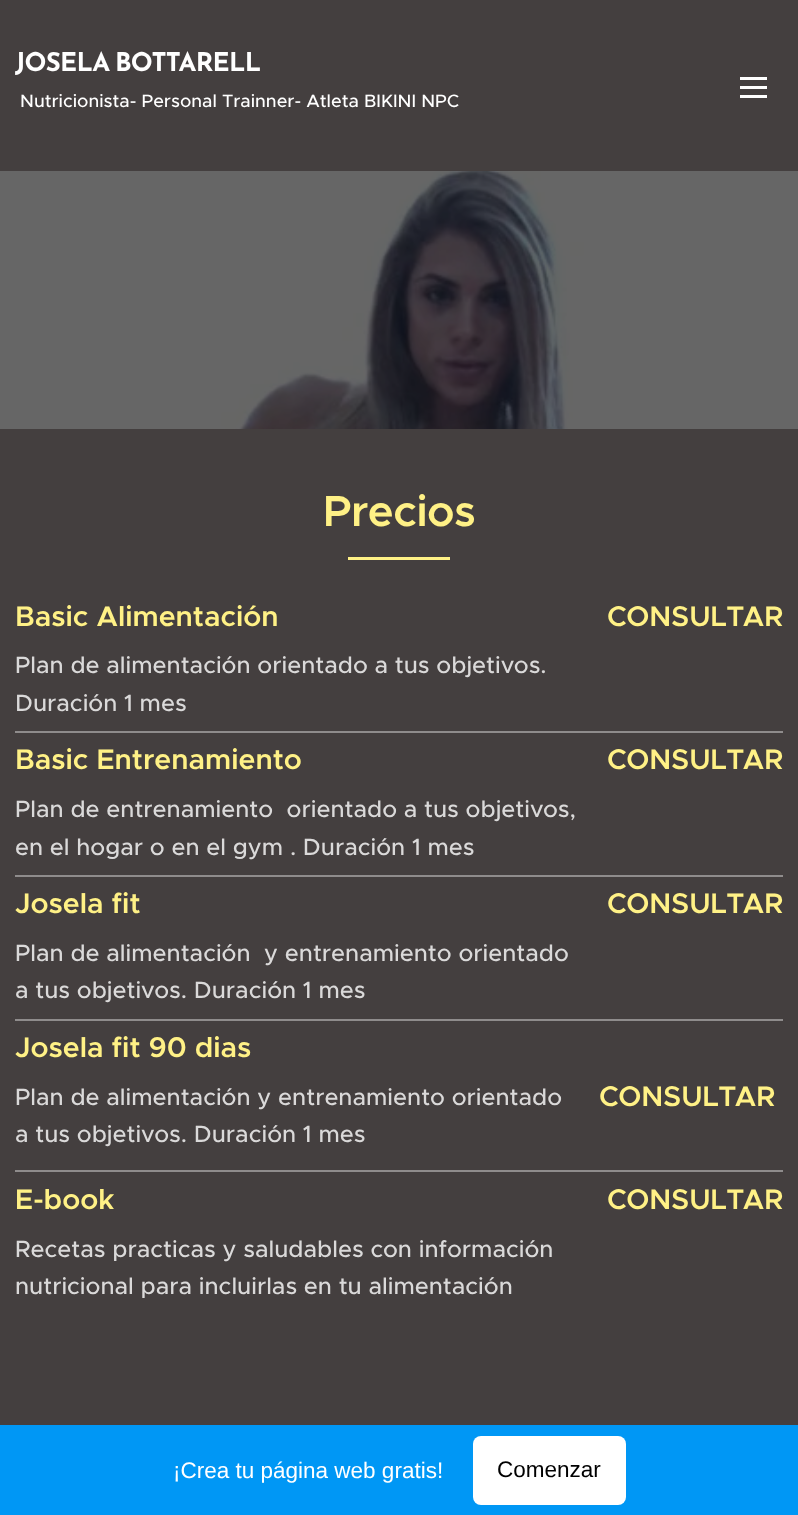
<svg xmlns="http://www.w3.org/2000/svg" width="798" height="1515">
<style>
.a{font:bold 25.75px Josefin Sans;letter-spacing:-0.75px;fill:#fff}
.b{font:500 18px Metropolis;fill:#fff}
.c{font:600 43.5px Metropolis;letter-spacing:-0.5px;fill:#fff186}
.d{font:600 28.5px Metropolis;fill:#fff186}
.e{font:500 23.55px Metropolis;fill:#dad9d9}
.f{font:22.5px Liberation Sans;fill:#fff}
.g{font:22.5px Liberation Sans;fill:#000}
</style>
<rect width="100%" height="100%" fill="#fff"/>
<path fill="#443f3f" d="M0 0h798v171H0z"/>
<path fill="#fff" d="M740 86h27v3H740z"/>
<path fill="#fff" d="M740 77h27v3H740z"/>
<path fill="#fff" d="M740 95h27v3H740z"/>
<image href="1.png" x="0" y="171" width="798" height="258"/>
<path fill="#443f3f" d="M0 429h798v996H0z"/>
<path fill="#fff186" d="M348 557h102v3H348z"/>
<path fill="#8f8c8c" d="M15 731h768v2H15z"/>
<path fill="#8f8c8c" d="M15 875h768v2H15z"/>
<path fill="#8f8c8c" d="M15 1019h768v2H15z"/>
<path fill="#8f8c8c" d="M15 1170h768v2H15z"/>
<path fill="#0097f5" d="M0 1425h798v90H0z"/>
<rect fill="#fff" x="473" y="1436" width="153" height="69" rx="8"/>
<text class="a" x="15" y="71" word-spacing="-2">JOSELA BOTTARELL</text>
<text class="b" x="20" y="107">Nutricionista- Personal Trainner- Atleta BIKINI NPC</text>
<text class="c" x="323" y="526">Precios</text>
<text class="d" x="15" y="626">Basic Alimentación</text>
<text class="e" x="15" y="673">Plan de alimentación orientado a tus objetivos.</text>
<text class="e" x="15" y="711">Duración 1 mes</text>
<text class="d" x="607" y="626">CONSULTAR</text>
<text class="d" x="15" y="769">Basic Entrenamiento</text>
<text class="e" xml:space="preserve" x="15" y="817">Plan de entrenamiento  orientado a tus objetivos,</text>
<text class="e" x="15" y="855">en el hogar o en el gym . Duración 1 mes</text>
<text class="d" x="607" y="769">CONSULTAR</text>
<text class="d" x="15" y="913">Josela fit</text>
<text class="e" xml:space="preserve" x="15" y="961">Plan de alimentación  y entrenamiento orientado</text>
<text class="e" x="15" y="998">a tus objetivos. Duración 1 mes</text>
<text class="d" x="607" y="913">CONSULTAR</text>
<text class="d" x="15" y="1057">Josela fit 90 dias</text>
<text class="e" x="15" y="1105">Plan de alimentación y entrenamiento orientado</text>
<text class="e" x="15" y="1142">a tus objetivos. Duración 1 mes</text>
<text class="d" x="599" y="1106">CONSULTAR</text>
<text class="d" x="15" y="1209">E-book</text>
<text class="e" x="15" y="1257">Recetas practicas y saludables con información</text>
<text class="e" x="15" y="1294">nutricional para incluirlas en tu alimentación</text>
<text class="d" x="607" y="1209">CONSULTAR</text>
<text class="f" x="173" y="1478">¡Crea tu página web gratis!</text>
<text class="g" x="497" y="1477">Comenzar</text>
</svg>
